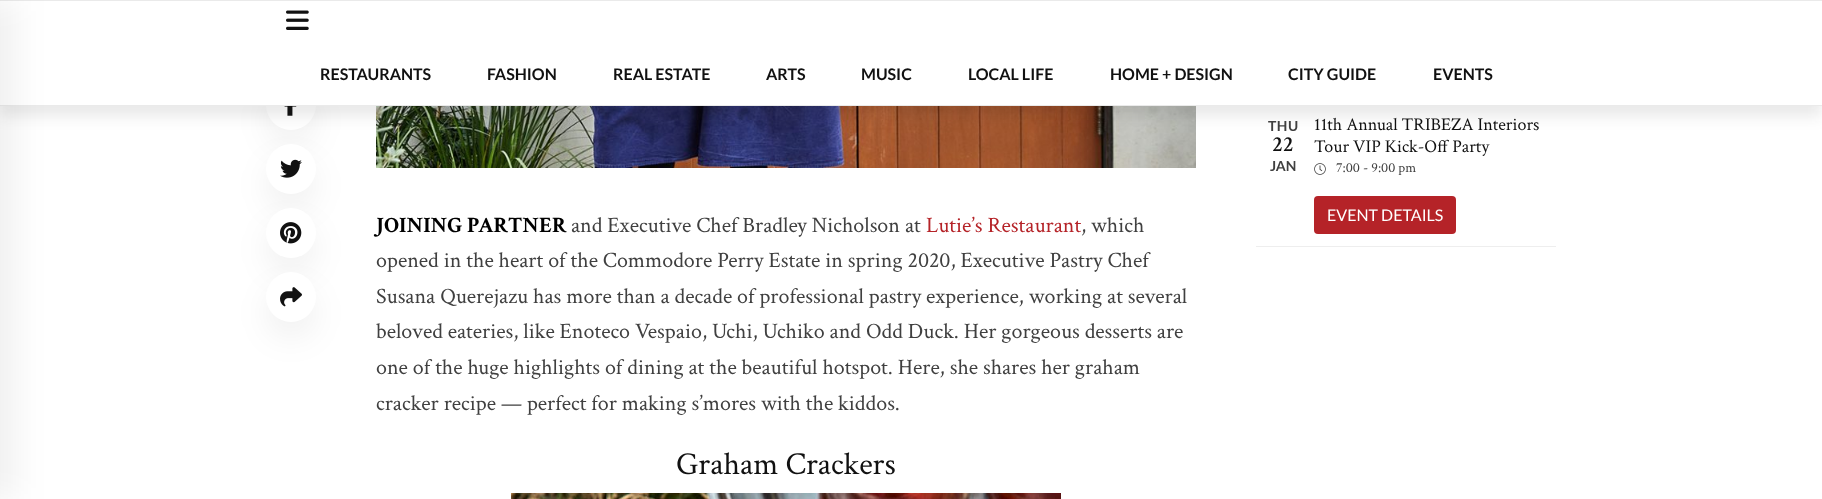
<svg xmlns="http://www.w3.org/2000/svg" width="1822" height="499">
<style>
.a{font:bold 16px Lato;fill:#111}
.b{font:bold 14px Lato;letter-spacing:0.5px;fill:#404040}
.c{font:600 22px Crimson Text;fill:#111}
.d{font:bold 14px Lato;fill:#404040}
.e{font:18px Crimson Text;fill:#111}
.f{font:14px Crimson Text;fill:#404040}
.g{font:16px Lato;fill:#fff}
.h{font:bold 22px Crimson Text;fill:#000}
.i{font:22px Crimson Text;fill:#404040}
.j{font:22px Crimson Text;fill:#b52328}
.k{font:32px Crimson Text;fill:#111}
</style>
<rect width="100%" height="100%" fill="#fff"/>
<rect fill="#0000000f" filter="blur(16px)" x="266" y="96" width="50" height="50" rx="25"/>
<circle fill="#fff" cx="291" cy="105" r="25"/>
<rect fill="#0000000f" filter="blur(16px)" x="266" y="160" width="50" height="50" rx="25"/>
<image href="2.png" x="284" y="106" width="13" height="10"/>
<image href="7.png" x="376" y="106" width="820" height="62"/>
<path fill="#1919191a" filter="blur(7.5px)" d="M0 10h1822v106H0z"/>
<path fill="#fff" d="M0 1h1822v104H0z"/>
<path fill="#eaeaea" d="M0 0h1822v1H0z"/>
<path fill="#eaeaea" d="M0 105h1822v1H0z"/>
<path fill="#0000000f" filter="blur(16px)" d="M-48 0h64v499H-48z"/>
<image href="1.png" x="286" y="10" width="23" height="20"/>
<circle fill="#fff" cx="291" cy="169" r="25"/>
<rect fill="#0000000f" filter="blur(16px)" x="266" y="224" width="50" height="50" rx="25"/>
<image href="3.png" x="280" y="159" width="22" height="19"/>
<circle fill="#fff" cx="291" cy="233" r="25"/>
<rect fill="#0000000f" filter="blur(16px)" x="266" y="288" width="50" height="50" rx="25"/>
<image href="4.png" x="280" y="222" width="22" height="22"/>
<circle fill="#fff" cx="291" cy="297" r="25"/>
<image href="5.png" x="280" y="287" width="22" height="20"/>
<path fill="#eee" d="M1256 246h300v1H1256z"/>
<image href="6.png" x="1314" y="163" width="12" height="12"/>
<rect fill="#b52328" x="1314" y="196" width="142" height="38" rx="4"/>
<image href="8.png" x="511" y="493" width="550" height="6"/>
<text class="a" x="320" y="80">RESTAURANTS</text>
<text class="a" x="487" y="80">FASHION</text>
<text class="a" x="613" y="80">REAL ESTATE</text>
<text class="a" x="766" y="80">ARTS</text>
<text class="a" x="861" y="80">MUSIC</text>
<text class="a" x="968" y="80">LOCAL LIFE</text>
<text class="a" x="1110" y="80">HOME + DESIGN</text>
<text class="a" x="1288" y="80">CITY GUIDE</text>
<text class="a" x="1433" y="80">EVENTS</text>
<text class="b" x="1268" y="131">THU</text>
<text class="c" x="1272" y="151">22</text>
<text class="d" x="1270" y="171">JAN</text>
<text class="e" x="1314" y="130">11th Annual TRIBEZA Interiors</text>
<text class="e" x="1314" y="152">Tour VIP Kick-Off Party</text>
<text class="f" x="1336" y="172">7:00 - 9:00 pm</text>
<text class="g" x="1327" y="221">EVENT DETAILS</text>
<text class="h" x="376" y="232">JOINING PARTNER</text>
<text class="i" x="571" y="232">and Executive Chef Bradley Nicholson at</text>
<text class="j" x="926" y="232">Lutie’s Restaurant</text>
<text class="i" x="1081" y="232">, which</text>
<text class="i" x="376" y="267">opened in the heart of the Commodore Perry Estate in spring 2020, Executive Pastry Chef</text>
<text class="i" x="376" y="303">Susana Querejazu has more than a decade of professional pastry experience, working at several</text>
<text class="i" x="376" y="338">beloved eateries, like Enoteco Vespaio, Uchi, Uchiko and Odd Duck. Her gorgeous desserts are</text>
<text class="i" x="376" y="374">one of the huge highlights of dining at the beautiful hotspot. Here, she shares her graham</text>
<text class="i" x="376" y="410">cracker recipe — perfect for making s’mores with the kiddos.</text>
<text class="k" x="676" y="474">Graham Crackers</text>
</svg>
